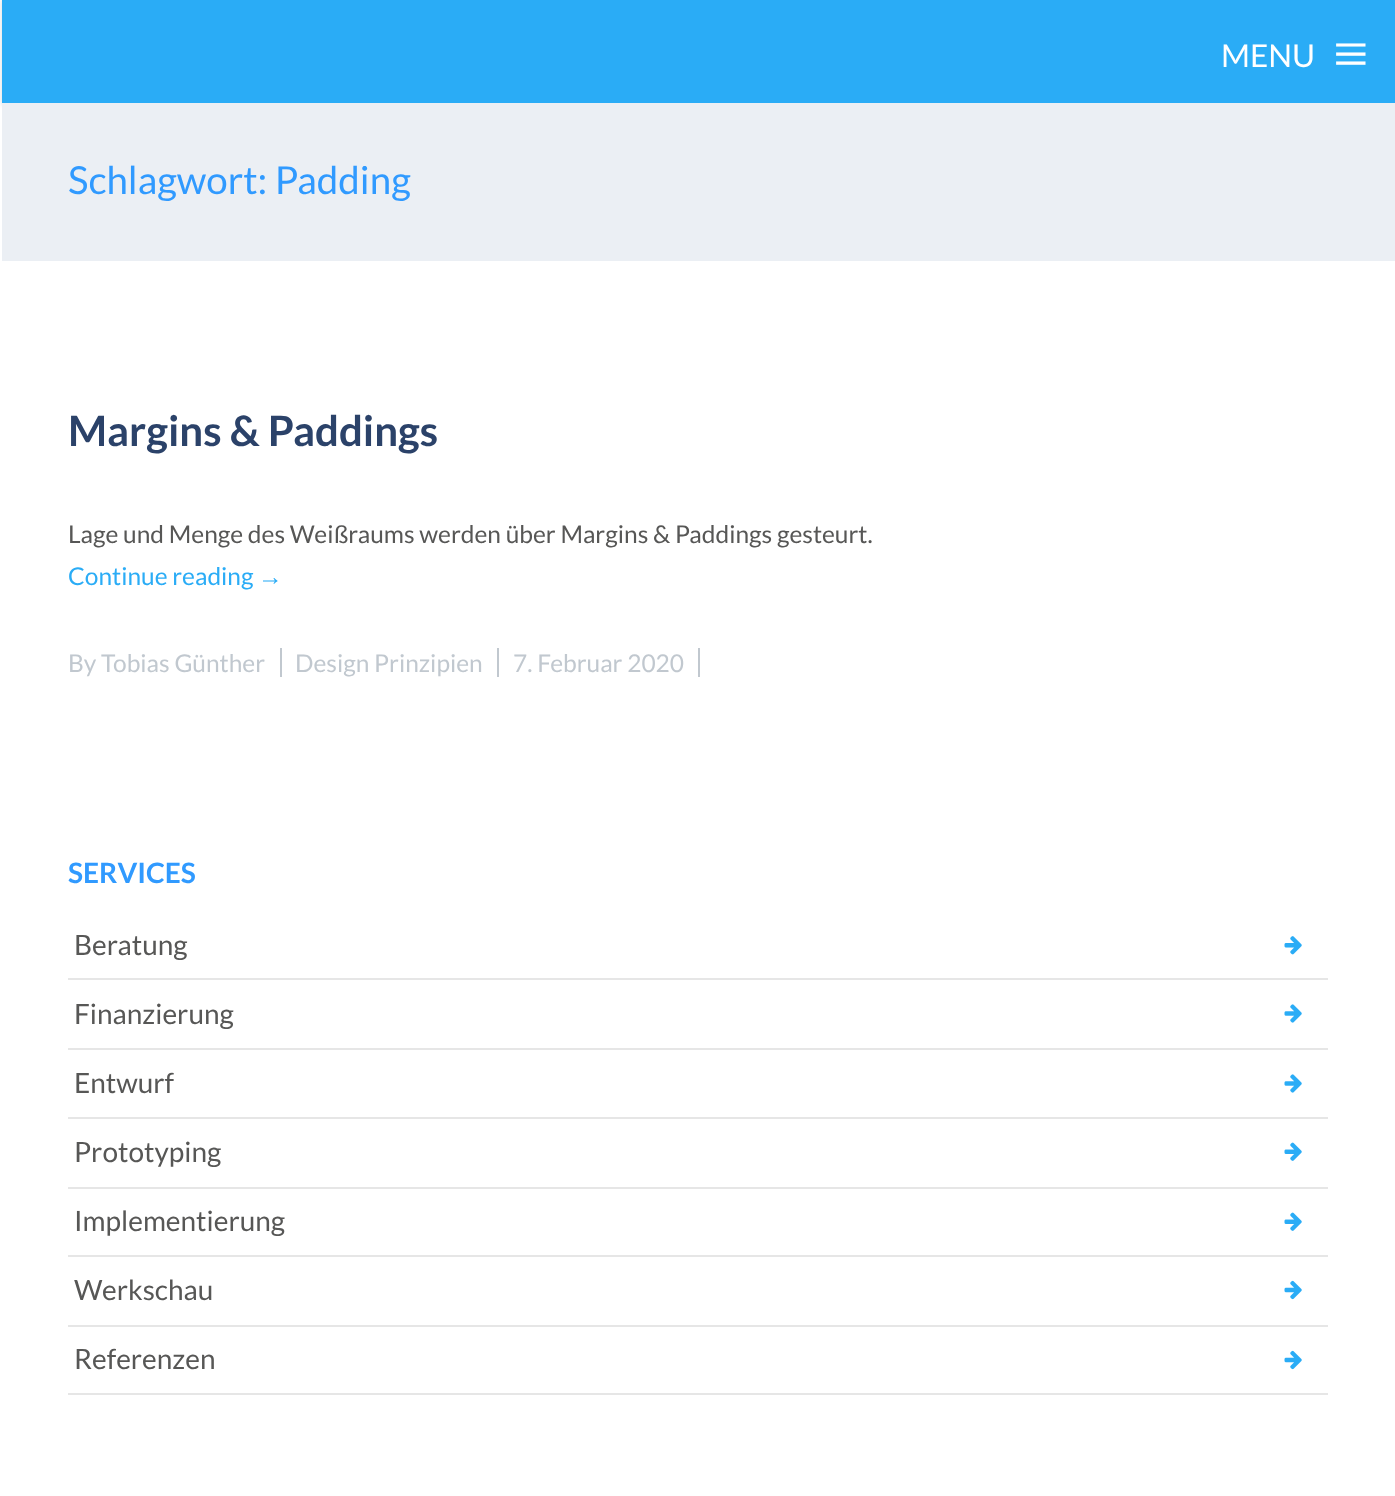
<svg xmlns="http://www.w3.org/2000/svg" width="1395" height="1496">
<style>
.a{font:31.5px Lato;fill:#fff}
.b{font:63px Liberation Serif;fill:#fff}
.c{font:38.5px Lato;fill:#309aff}
.d{font:bold 42px Lato;fill:#2b4269}
.e{font:24.5px Lato;fill:#575756}
.f{font:24.5px Lato;fill:#2aacf6}
.g{font:24.5px Liberation Serif;fill:#2aacf6}
.h{font:24.5px Lato;fill:#c1c8cf}
.i{font:bold 28px Lato;fill:#309aff}
.j{font:28px Lato;fill:#575756}
</style>
<rect width="100%" height="100%" fill="#fff"/>
<path fill="#00000026" filter="blur(2.5px)" d="M2 0h1393v105H2z"/>
<path fill="#2aacf6" d="M2 0h1393v103H2z"/>
<path fill="#ebeff4" d="M2 103h1393v158H2z"/>
<path fill="#c1c8cf" d="M280 648h2v29H280z"/>
<path fill="#c1c8cf" d="M497 648h2v29H497z"/>
<path fill="#c1c8cf" d="M698 648h2v29H698z"/>
<path fill="#e6e6e6" d="M68 978h1260v2H68z"/>
<image href="1.png" x="1284" y="936" width="18" height="19"/>
<path fill="#e6e6e6" d="M68 1048h1260v2H68z"/>
<image href="2.png" x="1284" y="1004" width="18" height="19"/>
<path fill="#e6e6e6" d="M68 1117h1260v2H68z"/>
<image href="2.png" x="1284" y="1074" width="18" height="19"/>
<path fill="#e6e6e6" d="M68 1187h1260v2H68z"/>
<image href="3.png" x="1284" y="1142" width="18" height="19"/>
<path fill="#e6e6e6" d="M68 1255h1260v2H68z"/>
<image href="3.png" x="1284" y="1212" width="18" height="19"/>
<path fill="#e6e6e6" d="M68 1325h1260v2H68z"/>
<image href="4.png" x="1284" y="1280" width="18" height="20"/>
<path fill="#e6e6e6" d="M68 1393h1260v2H68z"/>
<image href="4.png" x="1284" y="1350" width="18" height="20"/>
<text class="a" x="1221" y="67">MENU</text>
<text class="b" x="1333" y="75">≡</text>
<text class="c" x="68" y="194">Schlagwort: Padding</text>
<text class="d" x="68" y="446">Margins &amp; Paddings</text>
<text class="e" x="68" y="543">Lage und Menge des Weißraums werden über Margins &amp; Paddings gesteurt.</text>
<text class="f" x="68" y="585">Continue reading</text>
<text class="g" x="258" y="585">→</text>
<text class="h" x="68" y="672">By Tobias Günther</text>
<text class="h" x="295" y="672">Design Prinzipien</text>
<text class="h" x="513" y="672">7. Februar 2020</text>
<text class="i" x="68" y="883">SERVICES</text>
<text class="j" x="74" y="955">Beratung</text>
<text class="j" x="74" y="1024">Finanzierung</text>
<text class="j" x="74" y="1093">Entwurf</text>
<text class="j" x="74" y="1162">Prototyping</text>
<text class="j" x="74" y="1231">Implementierung</text>
<text class="j" x="74" y="1300">Werkschau</text>
<text class="j" x="74" y="1369">Referenzen</text>
</svg>
